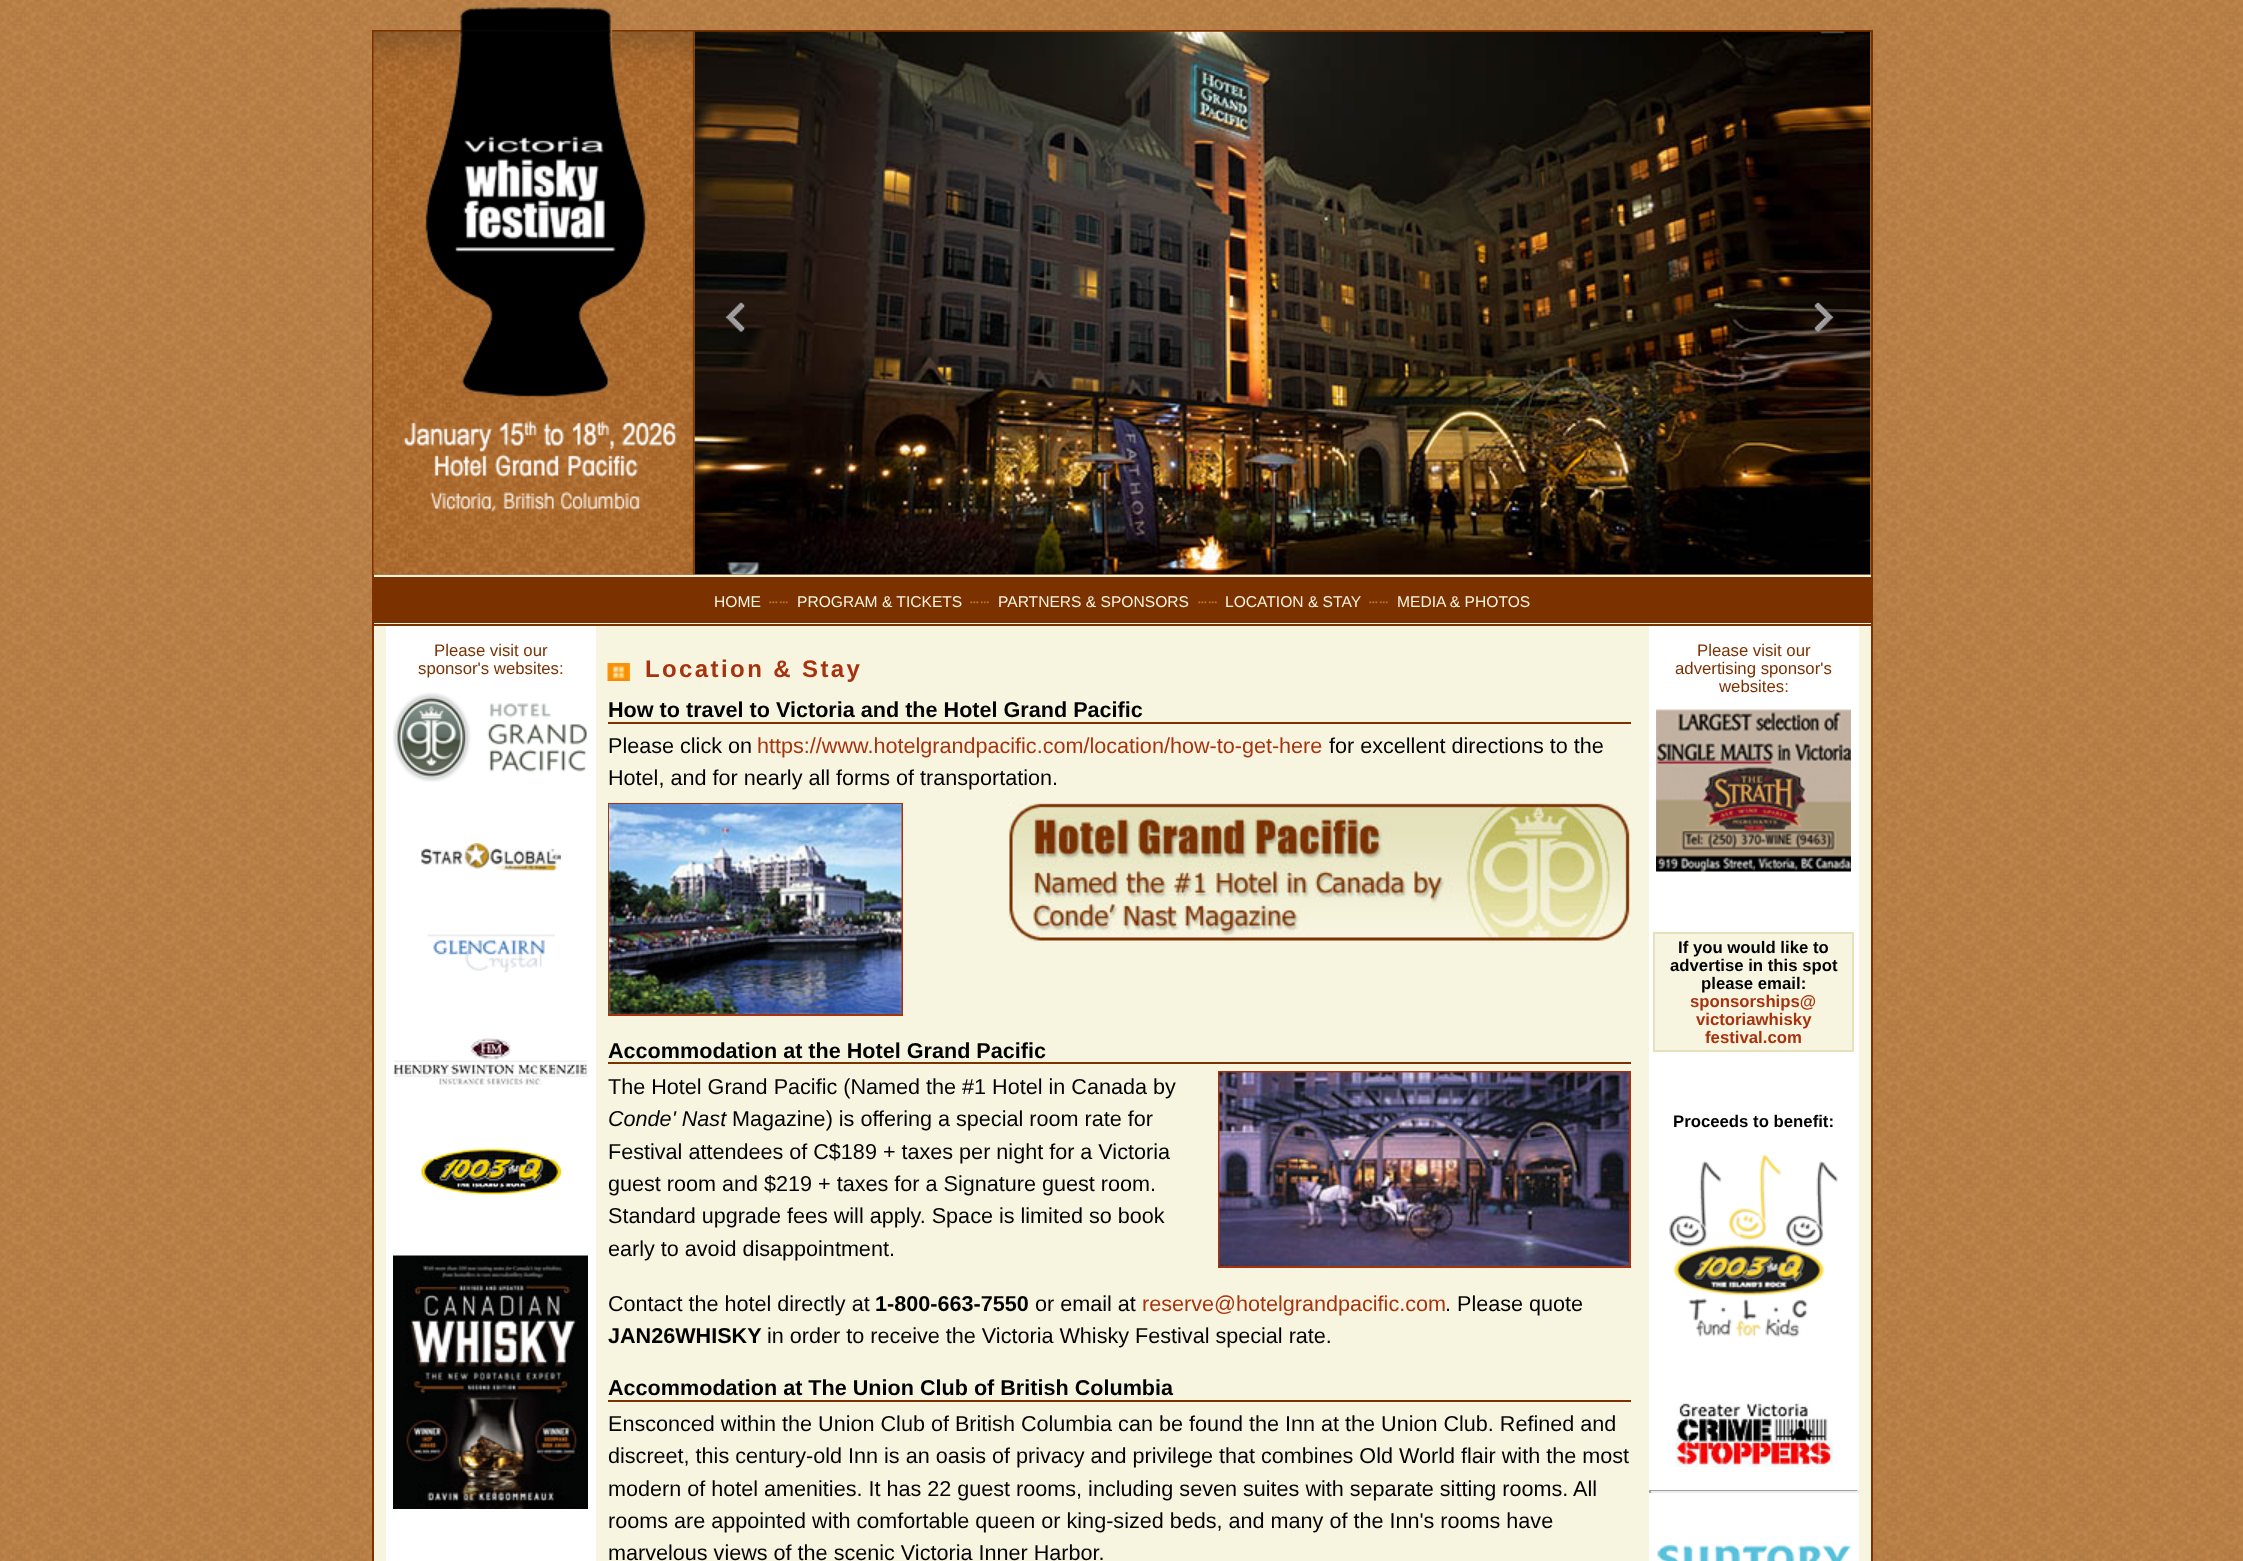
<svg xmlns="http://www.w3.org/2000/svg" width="2243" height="1561">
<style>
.a{font:15.6px Liberation Sans;fill:#f7f5df}
.b{font:16.75px Liberation Sans;fill:#7b3100}
.c{font:bold 24px Liberation Sans;letter-spacing:2.4px;fill:#a7330e}
.d{font:bold 21.6px Liberation Sans;fill:#000}
.e{font:21.6px Liberation Sans;fill:#000}
.f{font:21.6px Liberation Sans;fill:#a7330e}
.g{font:italic 21.6px Liberation Sans;fill:#000}
.h{font:bold 16.75px Liberation Sans;fill:#000}
.i{font:bold 16.75px Liberation Sans;fill:#a7330e}
</style>
<rect width="100%" height="100%" fill="#fff"/>
<image href="1.png" x="0" y="0" width="2243" height="1561"/>
<path fill="#7b3100" d="M372 30h1500v2H372z"/>
<path fill="#7b3100" d="M1871 30h2v594H1871z"/>
<path fill="#7b3100" d="M372 30h2v594H372z"/>
<image href="2.png" x="373" y="31" width="322" height="544"/>
<image href="3.png" x="425" y="7" width="221" height="390"/>
<image href="4.png" x="403" y="421" width="274" height="91"/>
<image href="5.png" x="694" y="31" width="1177" height="544"/>
<image href="6.png" x="725" y="302" width="20" height="30"/>
<image href="7.png" x="1814" y="302" width="20" height="30"/>
<path fill="#7b3100" d="M374 577h1497v46H374z"/>
<path fill="#f7f5df" d="M374 575h1497v2H374z"/>
<path fill="#f7f5df" d="M374 623h1497v1H374z"/>
<image href="8.png" x="769" y="601" width="19" height="3"/>
<image href="8.png" x="970" y="601" width="19" height="3"/>
<image href="9.png" x="1198" y="601" width="19" height="3"/>
<image href="8.png" x="1369" y="601" width="19" height="3"/>
<path fill="#f7f5df" d="M374 626h1497v935H374z"/>
<path fill="#7b3100" d="M372 624h1500v2H372z"/>
<path fill="#7b3100" d="M1871 624h2v937H1871z"/>
<path fill="#7b3100" d="M372 624h2v937H372z"/>
<path fill="#fff" d="M386 626h210v935H386z"/>
<image href="10.png" x="393" y="692" width="194" height="90"/>
<image href="11.png" x="421" y="843" width="140" height="29"/>
<image href="12.png" x="427" y="934" width="128" height="39"/>
<image href="13.png" x="393" y="1038" width="195" height="47"/>
<image href="14.png" x="420" y="1148" width="142" height="48"/>
<image href="15.png" x="393" y="1255" width="195" height="254"/>
<image href="16.png" x="607" y="663" width="23" height="18"/>
<path fill="#7b3100" d="M608 722h1023v2H608z"/>
<path fill="none" stroke="#a7330e" stroke-width="2" d="M609 804h293v211H609z"/>
<image href="17.png" x="609" y="804" width="293" height="210"/>
<image href="18.png" x="1008" y="802" width="623" height="140"/>
<path fill="#7b3100" d="M608 1062h1023v2H608z"/>
<path fill="none" stroke="#a7330e" stroke-width="2" d="M1219 1072h411v195H1219z"/>
<image href="19.png" x="1219" y="1072" width="410" height="194"/>
<path fill="#7b3100" d="M608 1400h1023v2H608z"/>
<path fill="#fff" d="M1649 626h210v935H1649z"/>
<image href="20.png" x="1656" y="709" width="195" height="163"/>
<path fill="#f7f5df" stroke="#e4e1bb" stroke-width="2" d="M1654 933h199v118H1654z"/>
<image href="21.png" x="1669" y="1154" width="169" height="183"/>
<image href="22.png" x="1675" y="1403" width="158" height="64"/>
<path fill="#9f9f9f" d="M1649 1490h210v1H1649z"/>
<path fill="#eee" d="M1857 1490h2v3H1857z"/>
<path fill="#eee" d="M1649 1491h210v2H1649z"/>
<path fill="#9f9f9f" d="M1649 1490h2v3H1649z"/>
<image href="23.png" x="1657" y="1544" width="194" height="17"/>
<text class="a" x="714" y="607">HOME</text>
<text class="a" x="797" y="607">PROGRAM &amp; TICKETS</text>
<text class="a" x="998" y="607">PARTNERS &amp; SPONSORS</text>
<text class="a" x="1225" y="607">LOCATION &amp; STAY</text>
<text class="a" x="1397" y="607">MEDIA &amp; PHOTOS</text>
<text class="b" x="434" y="656">Please visit our</text>
<text class="b" x="418" y="674">sponsor's websites:</text>
<text class="c" x="645" y="677">Location &amp; Stay</text>
<text class="d" x="608" y="717">How to travel to Victoria and the Hotel Grand Pacific</text>
<text class="e" x="608" y="753">Please click on</text>
<text class="f" x="757" y="753">https://www.hotelgrandpacific.com/location/how-to-get-here</text>
<text class="e" x="1329" y="753">for excellent directions to the</text>
<text class="e" x="608" y="785">Hotel, and for nearly all forms of transportation.</text>
<text class="d" x="608" y="1058">Accommodation at the Hotel Grand Pacific</text>
<text class="e" x="608" y="1094">The Hotel Grand Pacific (Named the #1 Hotel in Canada by</text>
<text class="g" x="608" y="1126">Conde' Nast</text>
<text class="e" x="732" y="1126">Magazine) is offering a special room rate for</text>
<text class="e" x="608" y="1159">Festival attendees of C$189 + taxes per night for a Victoria</text>
<text class="e" x="608" y="1191">guest room and $219 + taxes for a Signature guest room.</text>
<text class="e" x="608" y="1223">Standard upgrade fees will apply. Space is limited so book</text>
<text class="e" x="608" y="1256">early to avoid disappointment.</text>
<text class="e" x="608" y="1311">Contact the hotel directly at</text>
<text class="d" x="875" y="1311">1-800-663-7550</text>
<text class="e" x="1035" y="1311">or email at</text>
<text class="f" x="1142" y="1311">reserve@hotelgrandpacific.com</text>
<text class="e" x="1445" y="1311">. Please quote</text>
<text class="d" x="608" y="1343">JAN26WHISKY</text>
<text class="e" x="767" y="1343">in order to receive the Victoria Whisky Festival special rate.</text>
<text class="d" x="608" y="1395">Accommodation at The Union Club of British Columbia</text>
<text class="e" x="608" y="1431">Ensconced within the Union Club of British Columbia can be found the Inn at the Union Club. Refined and</text>
<text class="e" x="608" y="1463">discreet, this century-old Inn is an oasis of privacy and privilege that combines Old World flair with the most</text>
<text class="e" x="608" y="1496">modern of hotel amenities. It has 22 guest rooms, including seven suites with separate sitting rooms. All</text>
<text class="e" x="608" y="1528">rooms are appointed with comfortable queen or king-sized beds, and many of the Inn's rooms have</text>
<text class="e" x="608" y="1560">marvelous views of the scenic Victoria Inner Harbor.</text>
<text class="b" x="1697" y="656">Please visit our</text>
<text class="b" x="1675" y="674">advertising sponsor's</text>
<text class="b" x="1719" y="692">websites:</text>
<text class="h" x="1678" y="953">If you would like to</text>
<text class="h" x="1670" y="971">advertise in this spot</text>
<text class="h" x="1701" y="989">please email:</text>
<text class="i" x="1690" y="1007">sponsorships@</text>
<text class="i" x="1696" y="1025">victoriawhisky</text>
<text class="i" x="1705" y="1043">festival.com</text>
<text class="h" x="1673" y="1127">Proceeds to benefit:</text>
</svg>
